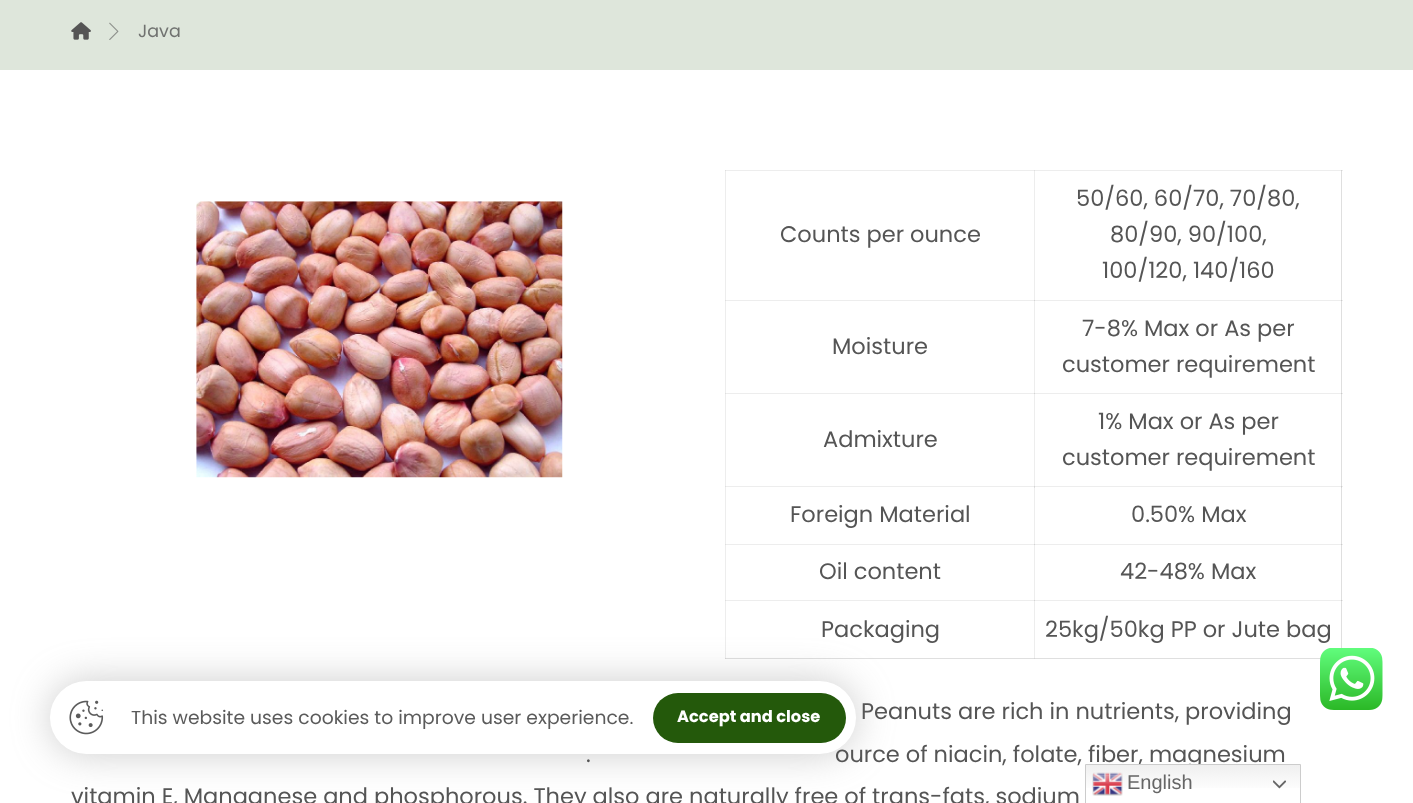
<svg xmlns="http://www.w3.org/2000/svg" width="1413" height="803">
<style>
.a{font:17.5px Poppins;fill:#707270}
.b{font:22.5px Poppins;fill:#555}
.c{font:18.75px Poppins;fill:#5b5b5b}
.d{font:bold 16.25px Poppins;fill:#fff}
.e{font:20px Liberation Sans;fill:#666}
</style>
<defs>
<linearGradient id="g1" gradientUnits="userSpaceOnUse" x1="1193" y1="764" x2="1193" y2="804"><stop offset="0" stop-color="#efefef"/><stop offset="0.7" stop-color="#fff"/></linearGradient>
</defs>
<rect width="100%" height="100%" fill="#fff"/>
<path fill="#ededed" d="M1034 170h1v489H1034z"/>
<path fill="#dfdfdf" d="M1034 486h1v2H1034z"/>
<path fill="#ededed" d="M725 300h618v1H725z"/>
<path fill="#d4d4d4" d="M1034 300h1v1H1034z"/>
<path fill="#ededed" d="M725 393h618v1H725z"/>
<path fill="#d4d4d4" d="M1034 393h1v1H1034z"/>
<path fill="#ededed" d="M725 486h618v1H725z"/>
<path fill="#d4d4d4" d="M1034 486h1v1H1034z"/>
<path fill="#ededed" d="M725 544h618v1H725z"/>
<path fill="#d4d4d4" d="M1034 544h1v1H1034z"/>
<path fill="#ededed" d="M725 600h618v1H725z"/>
<path fill="#d4d4d4" d="M1034 600h1v1H1034z"/>
<path fill="#ededed" d="M725 170h1v489H725z"/>
<path fill="#dfdfdf" d="M725 300h1v1H725z"/>
<path fill="#dfdfdf" d="M725 393h1v1H725z"/>
<path fill="#dfdfdf" d="M725 486h1v1H725z"/>
<path fill="#dfdfdf" d="M725 544h1v1H725z"/>
<path fill="#dfdfdf" d="M725 600h1v1H725z"/>
<path fill="#dfdfdf" d="M725 658h596v1H725z"/>
<path fill="#d4d4d4" d="M1034 658h1v1H1034z"/>
<path fill="#d4d4d4" d="M725 658h1v1H725z"/>
<path fill="#dfdfdf" d="M1341 170h1v478H1341z"/>
<path fill="#d4d4d4" d="M1341 486h1v2H1341z"/>
<path fill="#cbcbcb" d="M1341 300h1v1H1341z"/>
<path fill="#cbcbcb" d="M1341 393h1v1H1341z"/>
<path fill="#cbcbcb" d="M1341 486h1v1H1341z"/>
<path fill="#cbcbcb" d="M1341 544h1v1H1341z"/>
<path fill="#cbcbcb" d="M1341 600h1v1H1341z"/>
<path fill="#dee6db" d="M0 0h1413v70H0z"/>
<image href="1.png" x="71" y="22" width="20" height="18"/>
<image href="2.png" x="109" y="22" width="10" height="18"/>
<image href="3.png" x="196" y="201" width="367" height="277"/>
<path fill="#ededed" d="M725 170h618v1H725z"/>
<path fill="#dfdfdf" d="M1034 170h1v1H1034z"/>
<path fill="#dfdfdf" d="M725 170h1v1H725z"/>
<path fill="#d4d4d4" d="M1341 170h1v1H1341z"/>
<image href="4.png" x="1320" y="648" width="63" height="62"/>
<rect fill="#8a8a8a70" filter="blur(19px)" x="50" y="681" width="806" height="73" rx="36.5"/>
<text class="a" x="138" y="37">Java</text>
<text class="b" x="780" y="242">Counts per ounce</text>
<text class="b" x="1076" y="206">50/60, 60/70, 70/80,</text>
<text class="b" x="1110" y="242">80/90, 90/100,</text>
<text class="b" x="1102" y="278">100/120, 140/160</text>
<text class="b" x="832" y="354">Moisture</text>
<text class="b" x="1082" y="336">7-8% Max or As per</text>
<text class="b" x="1062" y="372">customer requirement</text>
<text class="b" x="823" y="447">Admixture</text>
<text class="b" x="1098" y="429">1% Max or As per</text>
<text class="b" x="1062" y="465">customer requirement</text>
<text class="b" x="790" y="522">Foreign Material</text>
<text class="b" x="1131" y="522">0.50% Max</text>
<text class="b" x="819" y="579">Oil content</text>
<text class="b" x="1120" y="579">42-48% Max</text>
<text class="b" x="821" y="637">Packaging</text>
<text class="b" x="1045" y="637">25kg/50kg PP or Jute bag</text>
<text class="b" x="861" y="719">Peanuts are rich in nutrients, providing</text>
<text class="b" x="586" y="762">.</text>
<text class="b" x="835" y="762">ource of niacin, folate, fiber, magnesium</text>
<text class="b" x="71" y="804">vitamin E, Manganese and phosphorous. They also are naturally free of trans-fats, sodium</text>
<rect fill="#fff" x="50" y="681" width="806" height="73" rx="36.5"/>
<image href="5.png" x="69" y="700" width="35" height="35"/>
<text class="c" x="131" y="724">This website uses cookies to improve user experience.</text>
<rect fill="#24590b" x="653" y="693" width="193" height="50" rx="25"/>
<text class="d" x="677" y="722">Accept and close</text>
<path fill="url(#g1)" d="M1086 765h214v23H1086z"/>
<path fill="none" stroke="#ccc" d="M1085.5 764.5h215v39H1085.5z"/>
<image href="6.png" x="1092" y="772" width="31" height="24"/>
<text class="e" x="1127" y="789">English</text>
<image href="7.png" x="1273" y="780" width="13" height="9"/>
</svg>
